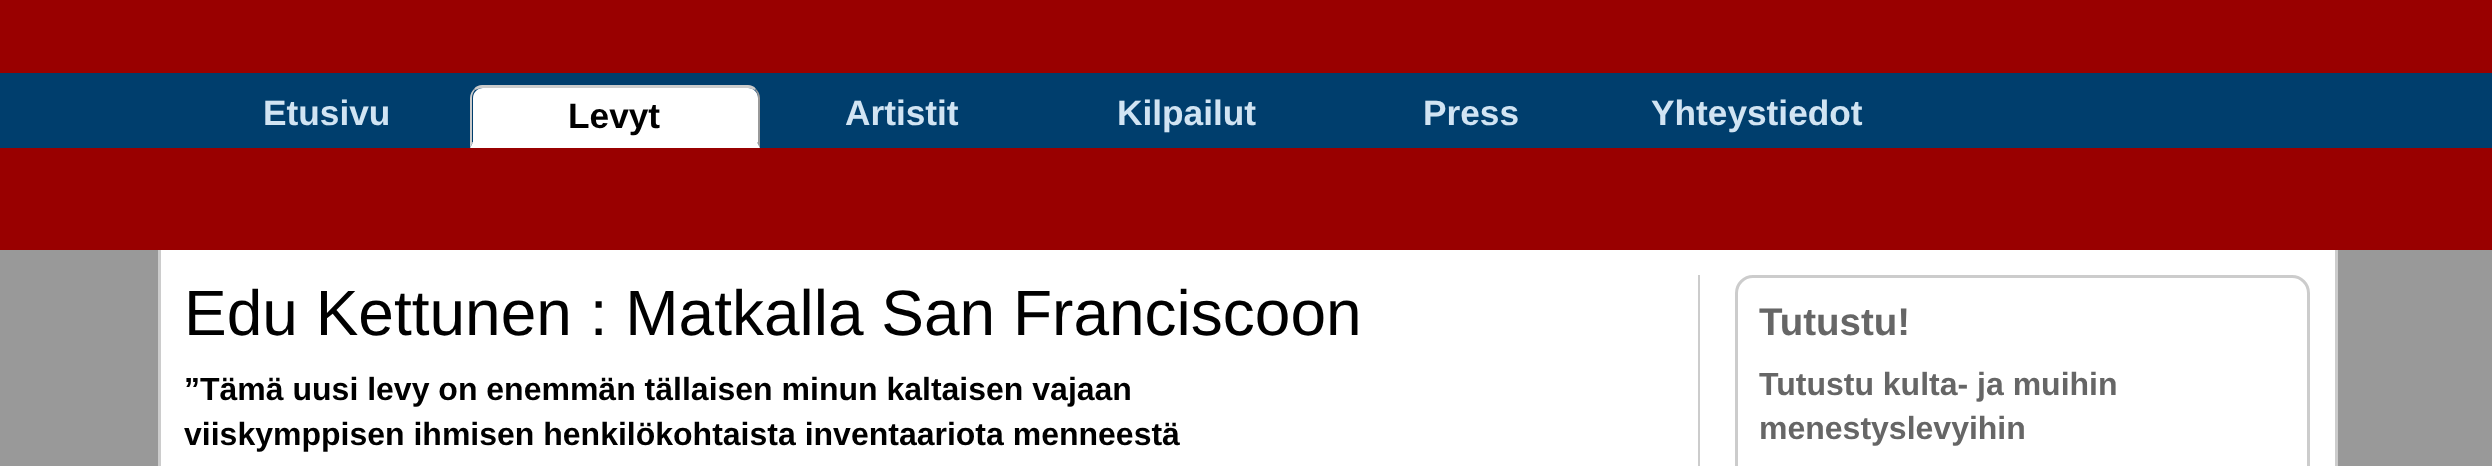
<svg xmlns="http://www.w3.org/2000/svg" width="2492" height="466">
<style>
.a{font:bold 35.25px Liberation Sans;fill:#d1e4f3}
.b{font:bold 35.25px Liberation Sans;fill:#000}
.c{font:64px Liberation Sans;fill:#000}
.d{font:bold 32px Liberation Sans;fill:#000}
.e{font:bold 38.5px Liberation Sans;fill:#666}
.f{font:bold 32px Liberation Sans;fill:#666}
</style>
<rect width="100%" height="100%" fill="#999"/>
<path fill="#900" d="M0 0h2492v250H0z"/>
<path fill="#003e6d" d="M0 73h2492v75H0z"/>
<path fill="#fff" d="M483 88h265c5.5 0 10 4.5 10 10v45h-285v-45c0-5.5 4.5-10 10-10z"/>
<path fill="#ccc" d="M482 85c-3 0-6 1-8 4l1 1l6-2h268l6 2l1-1c-2-3-5-4-8-4z"/>
<path fill="#999" d="M760 148v-50c0-4-2-7-4-9l-1 1c2 2 3 5 3 8v44h-1z"/>
<path fill="#fff" d="M760 148h-290l3-6h284z"/>
<path fill="#ccc" d="M470 148l3-6h-1v-44c0-3 1-6 3-8l-1-1c-2 2-4 5-4 9z"/>
<path fill="#fff" d="M161 250h2174v216H161z"/>
<path fill="#ccc" d="M2335 250h3v216H2335z"/>
<path fill="#ccc" d="M158 250h3v216H158z"/>
<path fill="#ccc" fill-rule="evenodd" d="M185 275h1515v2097c0 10-8 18-18 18h-1497zm0 0h1513v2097c0 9-7 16-16 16h-1497z"/>
<rect fill="none" stroke="#ccc" stroke-width="3" x="1736.5" y="276.5" width="572" height="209" rx="16.5"/>
<text class="a" x="263" y="125">Etusivu</text>
<text class="b" x="568" y="128">Levyt</text>
<text class="a" x="845" y="125">Artistit</text>
<text class="a" x="1117" y="125">Kilpailut</text>
<text class="a" x="1423" y="125">Press</text>
<text class="a" x="1651" y="125">Yhteystiedot</text>
<text class="c" x="184" y="335">Edu Kettunen : Matkalla San Franciscoon</text>
<text class="d" x="184" y="400">”Tämä uusi levy on enemmän tällaisen minun kaltaisen vajaan</text>
<text class="d" x="184" y="445">viiskymppisen ihmisen henkilökohtaista inventaariota menneestä</text>
<text class="e" x="1759" y="335">Tutustu!</text>
<text class="f" x="1759" y="395">Tutustu kulta- ja muihin</text>
<text class="f" x="1759" y="439">menestyslevyihin</text>
</svg>
